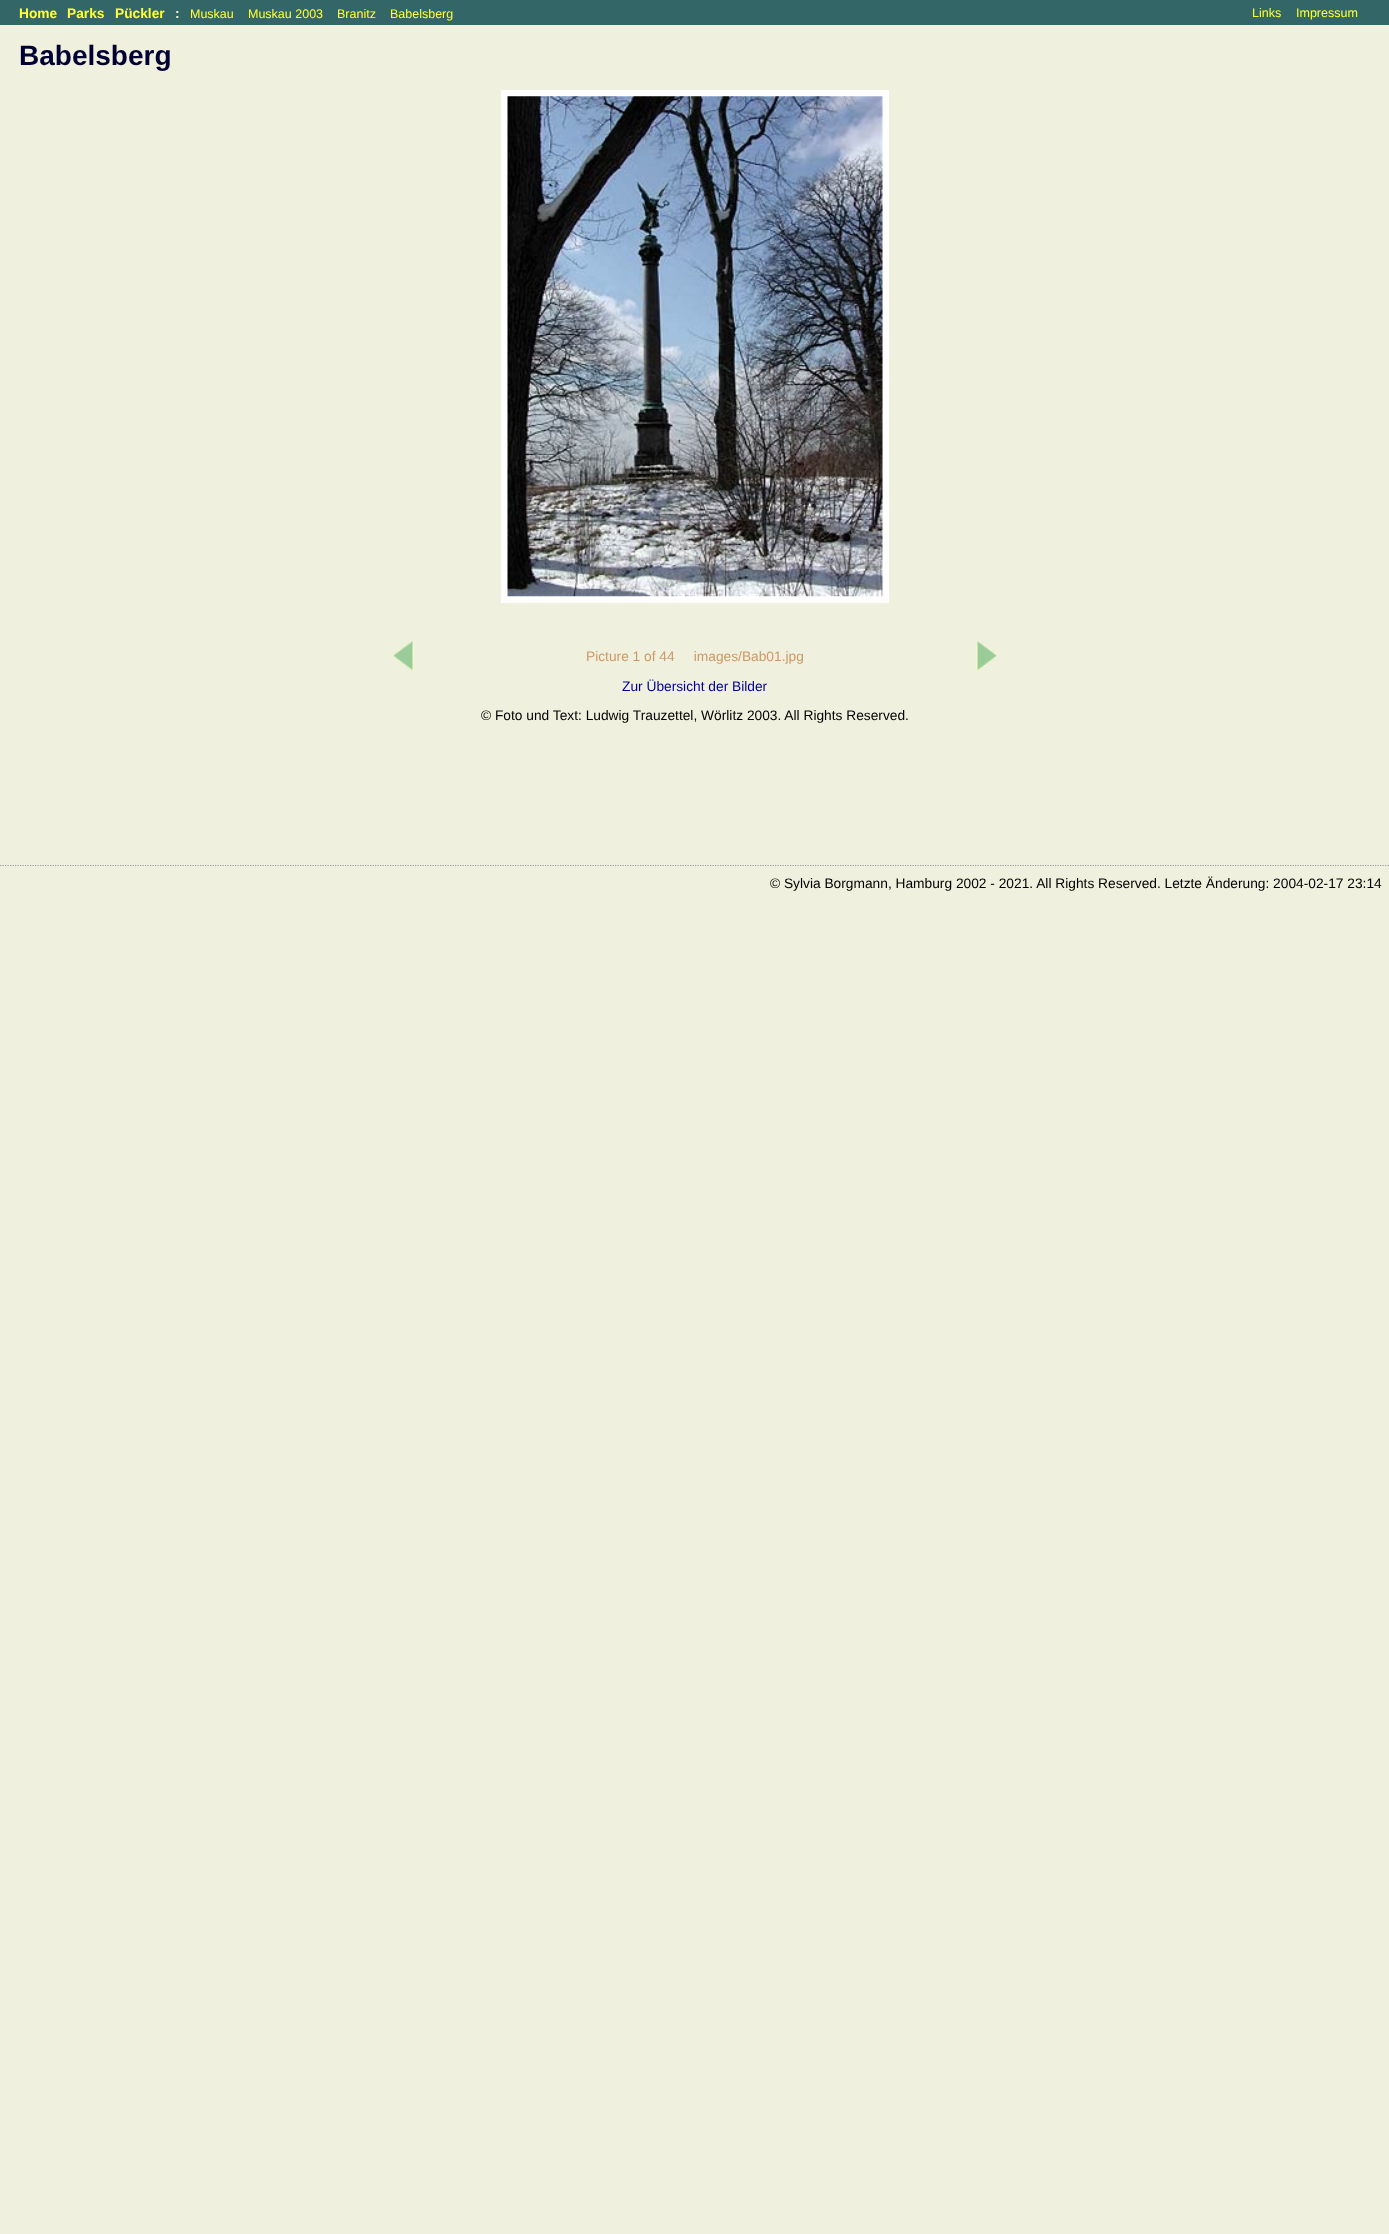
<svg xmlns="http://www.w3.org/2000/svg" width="1389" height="2234">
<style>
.a{font:bold 13.75px Liberation Sans;fill:#ff3}
.b{font:bold 13.75px Liberation Sans;fill:#eec}
.c{font:12.5px Liberation Sans;fill:#ff3}
.d{font:bold 28px Liberation Sans;fill:#003}
.e{font:13.75px Liberation Sans;fill:#c96}
.f{font:13.75px Liberation Sans;fill:#009}
.g{font:13.75px Liberation Sans;fill:#000}
</style>
<rect width="100%" height="100%" fill="#f0f0de"/>
<path fill="#366" d="M0 0h1389v25H0z"/>
<path fill="#fff" d="M501 90h388v513H501z"/>
<image href="1.png" x="507" y="96" width="376" height="501"/>
<image href="2.png" x="392" y="641" width="22" height="31"/>
<image href="3.png" x="976" y="641" width="22" height="31"/>
<path fill="none" stroke="#999" stroke-width="1.2" stroke-dasharray="1.25 1.25" d="M0 865.5h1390"/>
<text class="a" x="19" y="18">Home</text>
<text class="a" x="67" y="18">Parks</text>
<text class="a" x="115" y="18">Pückler</text>
<text class="b" x="175" y="18">:</text>
<text class="c" x="190" y="18">Muskau</text>
<text class="c" x="248" y="18">Muskau 2003</text>
<text class="c" x="337" y="18">Branitz</text>
<text class="c" x="390" y="18">Babelsberg</text>
<text class="c" x="1252" y="17">Links</text>
<text class="c" x="1296" y="17">Impressum</text>
<text class="d" x="19" y="65">Babelsberg</text>
<text class="e" xml:space="preserve" x="586" y="661">Picture 1 of 44     images/Bab01.jpg</text>
<text class="f" x="622" y="691">Zur Übersicht der Bilder</text>
<text class="g" x="481" y="720">© Foto und Text: Ludwig Trauzettel, Wörlitz 2003. All Rights Reserved.</text>
<text class="g" x="770" y="888">© Sylvia Borgmann, Hamburg 2002 - 2021. All Rights Reserved. Letzte Änderung: 2004-02-17 23:14</text>
</svg>
